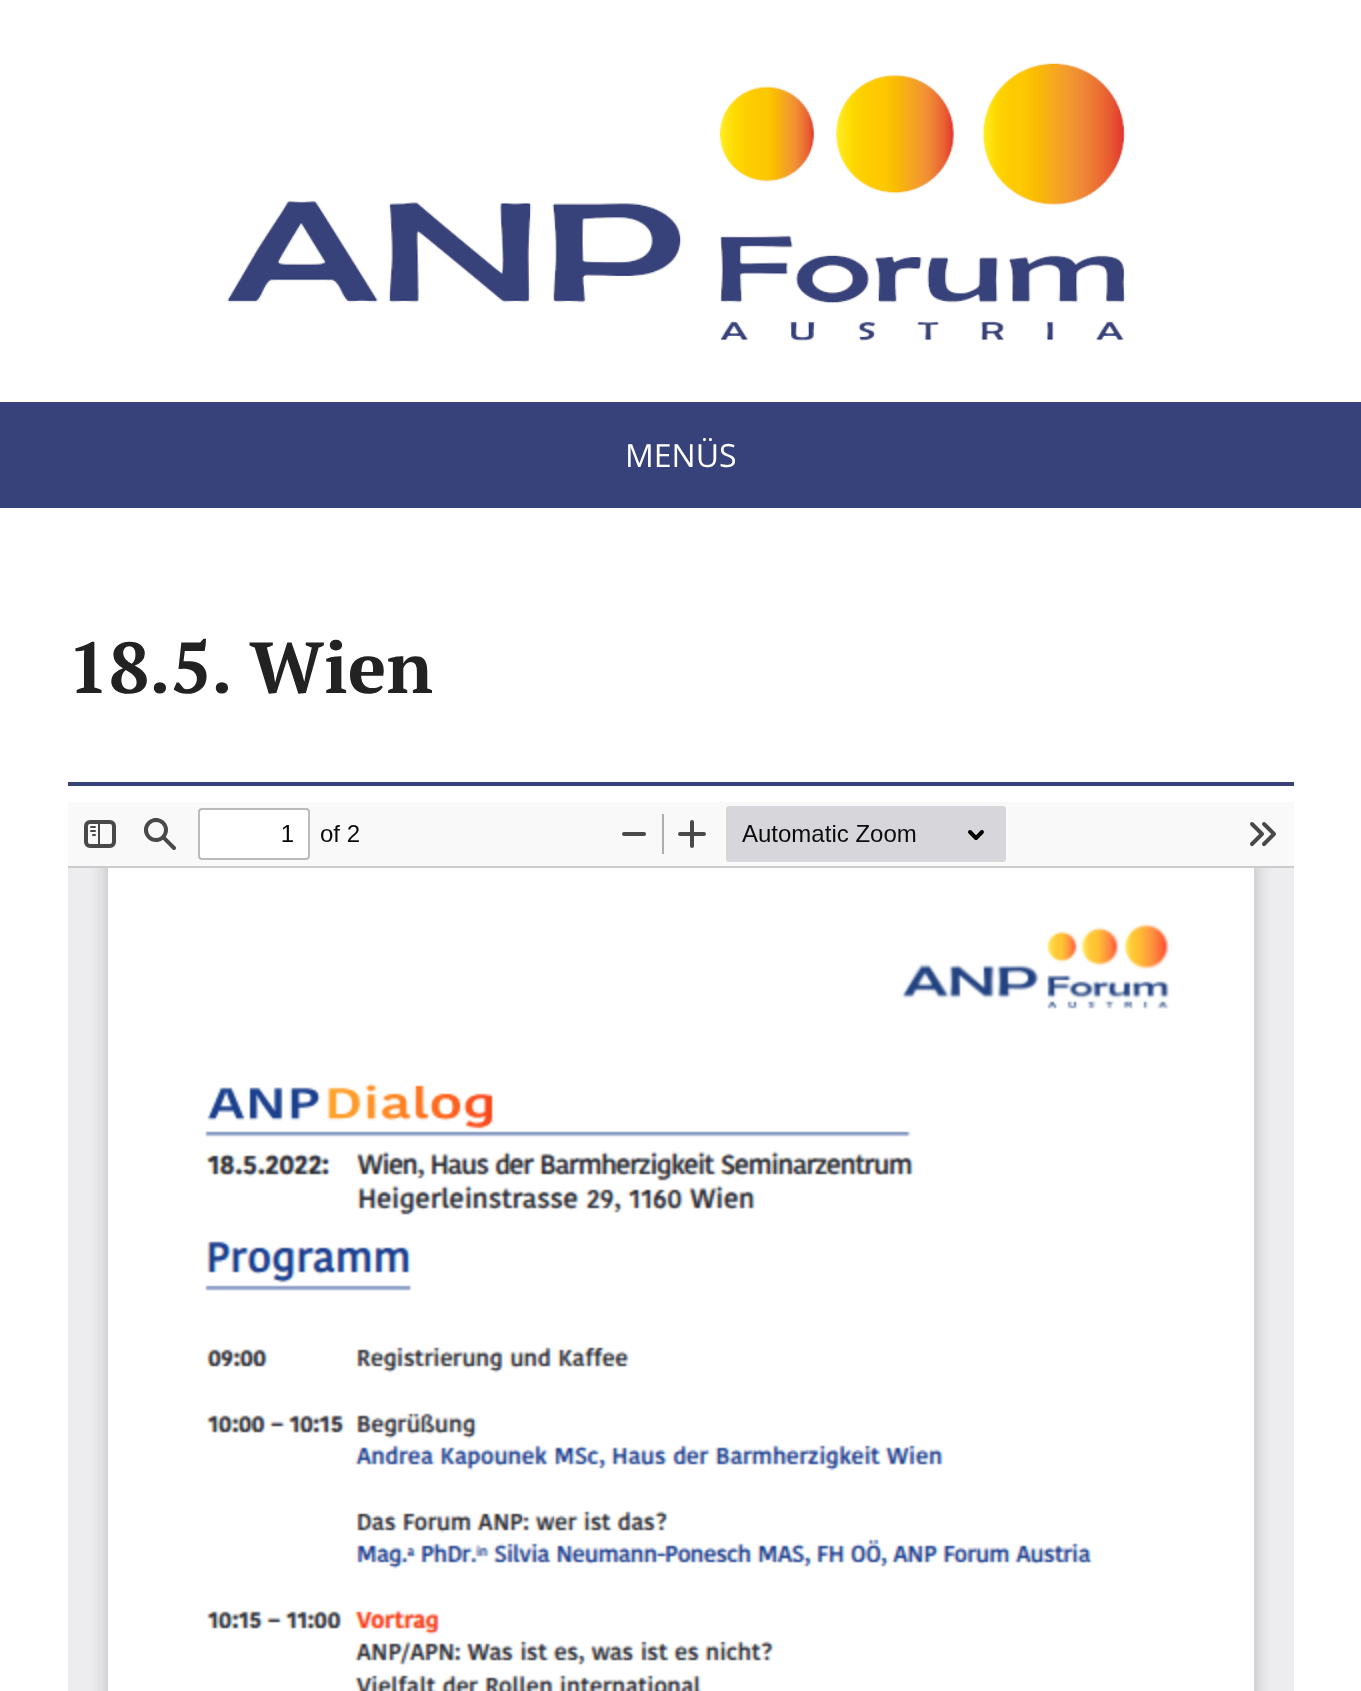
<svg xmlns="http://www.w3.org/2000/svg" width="1361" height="1691">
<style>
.a{font:32px Open Sans;fill:#fff}
.b{font:bold 72px PT Serif;fill:#222}
</style>
<rect width="100%" height="100%" fill="#fff"/>
<image href="1.png" x="227" y="63" width="899" height="278"/>
<path fill="#38427a" d="M0 402h1361v106H0z"/>
<path fill="#38427a" d="M68 782h1226v4H68z"/>
<image href="2.png" x="68" y="802" width="1226" height="889"/>
<text class="a" x="625" y="467">MENÜS</text>
<text class="b" x="68" y="693">18.5. Wien</text>
</svg>
